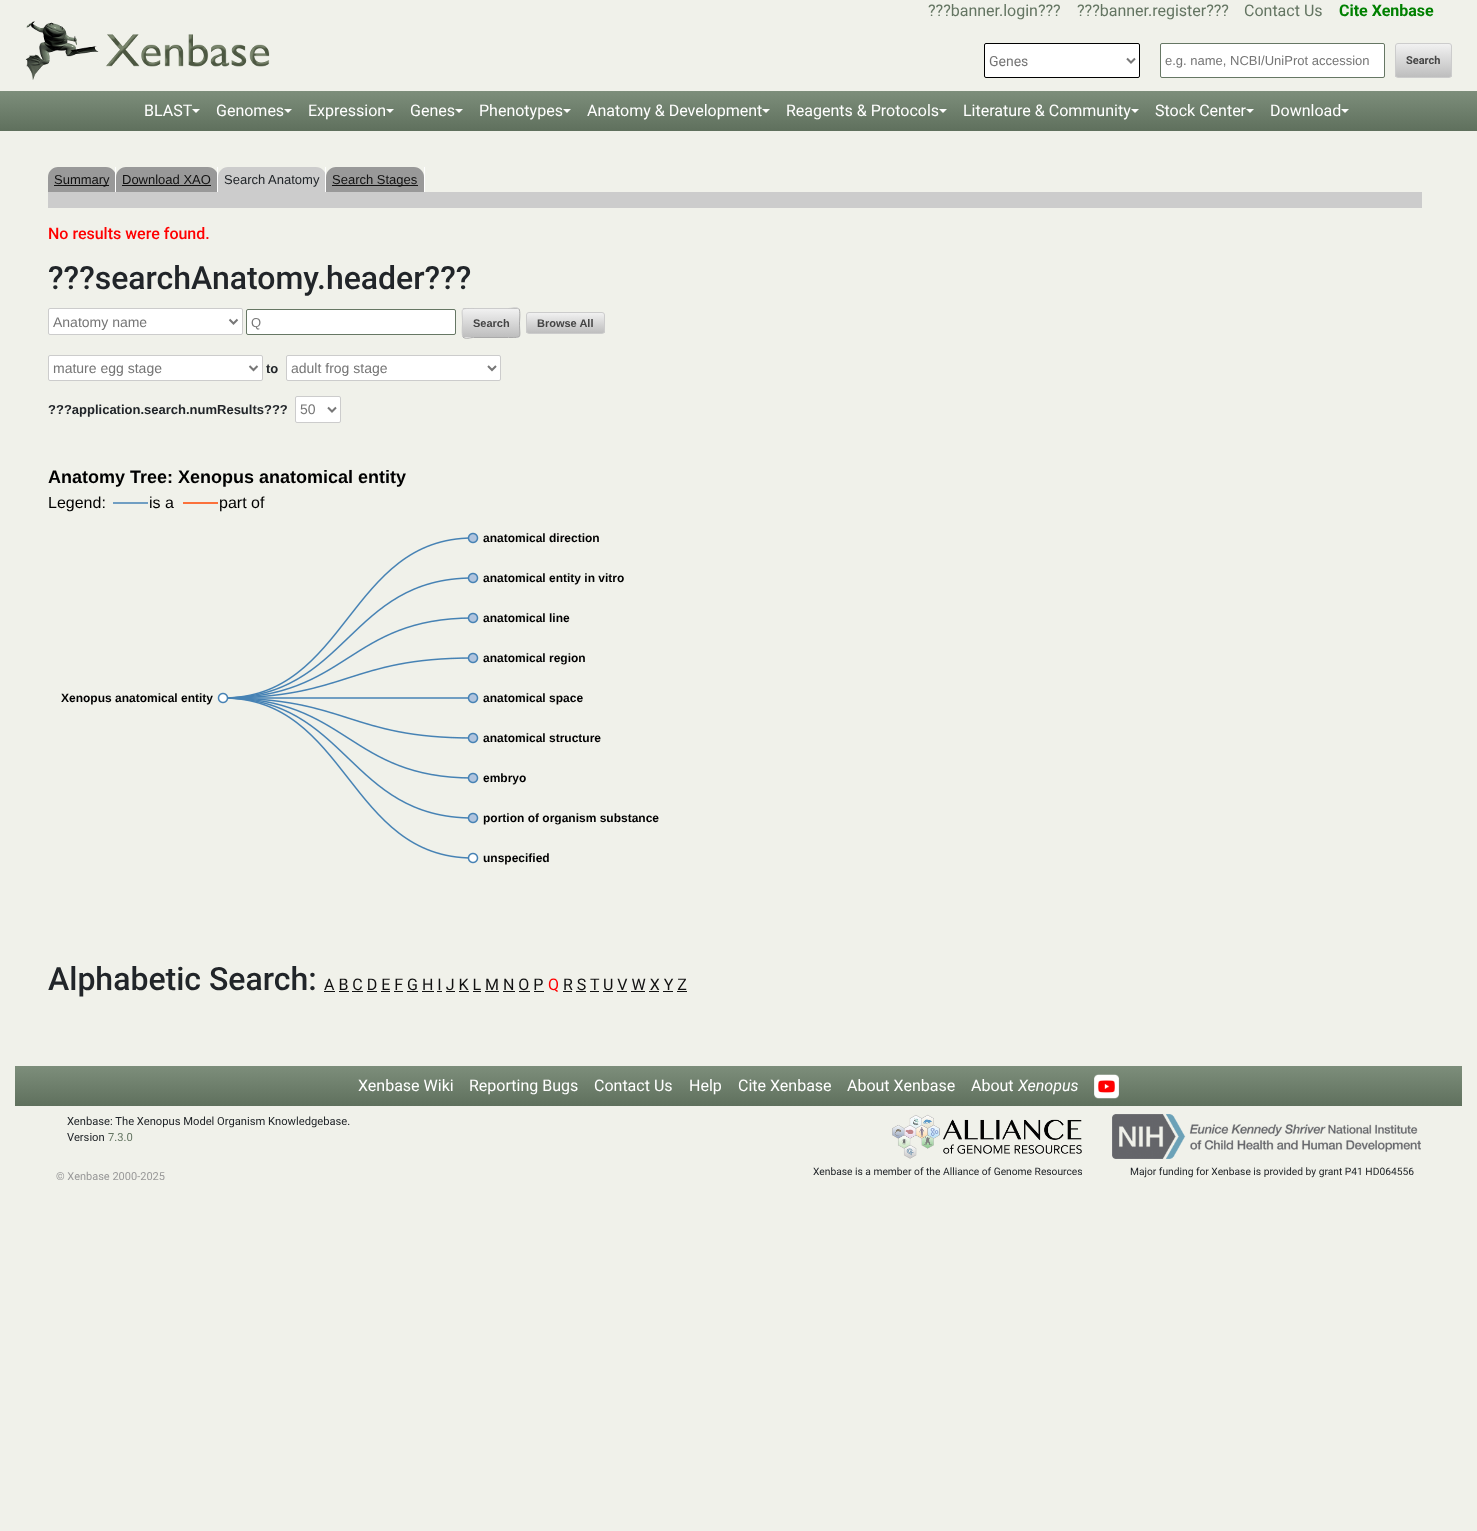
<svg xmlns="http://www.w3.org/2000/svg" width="1477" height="1531">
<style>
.a{font:16px Roboto;fill:#647562}
.b{font:bold 16px Roboto;fill:#008000}
.c{font:14px Roboto;fill:#757575}
.d{font:13px Liberation Sans;fill:#757575}
.e{font:bold 11px Roboto;fill:#444}
.f{font:16px Roboto;fill:#fff}
.g{font:13px Liberation Sans;fill:#111}
.h{font:13px Liberation Sans;fill:#212529}
.i{font:500 16px Roboto;fill:#f00}
.j{font:500 32px Roboto;fill:#212529}
.k{font:14px Liberation Sans;fill:#757575}
.l{font:bold 11px Liberation Sans;fill:#444}
.m{font:bold 13px Liberation Sans;fill:#212529}
.n{font:bold 18px Liberation Sans;fill:#000}
.o{font:16px Liberation Sans;fill:#000}
.p{font:bold 12px Liberation Sans;fill:#000}
.q{font:16px Roboto;fill:#111}
.r{font:16px Roboto;fill:#f00}
.s{font:italic 16px Roboto;fill:#fff}
.t{font:11.2px Roboto;fill:#212529}
.u{font:11.2px Roboto;fill:#647562}
.v{font:11px Roboto;fill:#999}
.w{font:10.25px Roboto;fill:#212529}
</style>
<defs>
<clipPath id="clip1"><rect x="1395" y="43" width="57" height="35" rx="3"/></clipPath>
<linearGradient id="g1" gradientUnits="userSpaceOnUse" x1="1424" y1="44" x2="1424" y2="77"><stop offset="0" stop-color="#f1f1f1"/><stop offset="1" stop-color="#bebebe"/></linearGradient>
<linearGradient id="g2" gradientUnits="userSpaceOnUse" x1="739" y1="91" x2="739" y2="131"><stop offset="0" stop-color="#7d8e7b"/><stop offset="1" stop-color="#5f705d"/></linearGradient>
<clipPath id="clip2"><rect x="462" y="308" width="58" height="30" rx="3"/></clipPath>
<linearGradient id="g3" gradientUnits="userSpaceOnUse" x1="491" y1="281" x2="491" y2="309"><stop offset="0" stop-color="#f1f1f1"/><stop offset="1" stop-color="#bebebe"/></linearGradient>
<linearGradient id="g4" gradientUnits="userSpaceOnUse" x1="491" y1="309" x2="491" y2="337"><stop offset="0" stop-color="#f1f1f1"/><stop offset="1" stop-color="#bebebe"/></linearGradient>
<linearGradient id="g5" gradientUnits="userSpaceOnUse" x1="491" y1="337" x2="491" y2="365"><stop offset="0" stop-color="#f1f1f1"/><stop offset="1" stop-color="#bebebe"/></linearGradient>
<clipPath id="clip3"><rect x="526" y="312" width="79" height="22" rx="3"/></clipPath>
<linearGradient id="g6" gradientUnits="userSpaceOnUse" x1="566" y1="313" x2="566" y2="333"><stop offset="0" stop-color="#f1f1f1"/><stop offset="1" stop-color="#bebebe"/></linearGradient>
<linearGradient id="g7" gradientUnits="userSpaceOnUse" x1="739" y1="1066" x2="739" y2="1106"><stop offset="0" stop-color="#7d8e7b"/><stop offset="1" stop-color="#5f705d"/></linearGradient>
</defs>
<rect width="100%" height="100%" fill="#f0f1ea"/>
<image href="1.png" x="25" y="21" width="245" height="59"/>
<rect fill="#fff" stroke="#000" x="984.5" y="43.5" width="155" height="34" rx="1.5"/>
<path fill="none" stroke="#777" stroke-width="2" d="M1127 58.5l4 4l4-4"/>
<rect fill="#fff" stroke="#667764" x="1160.5" y="43.5" width="224" height="34" rx="1.5"/>
<g clip-path="url(#clip1)">
<path fill="url(#g1)" d="M1395 44h57v33H1395z"/>
</g>
<rect fill="none" stroke="#ccc" x="1395.5" y="43.5" width="56" height="34" rx="2.5"/>
<path fill="url(#g2)" d="M0 91h1477v40H0z"/>
<path fill="#fff" d="M192 109h8l-4 4z"/>
<path fill="#fff" d="M284 109h8l-4 4z"/>
<path fill="#fff" d="M386 109h8l-4 4z"/>
<path fill="#fff" d="M455 109h8l-4 4z"/>
<path fill="#fff" d="M563 109h8l-4 4z"/>
<path fill="#fff" d="M762 109h8l-4 4z"/>
<path fill="#fff" d="M939 109h8l-4 4z"/>
<path fill="#fff" d="M1131 109h8l-4 4z"/>
<path fill="#fff" d="M1246 109h8l-4 4z"/>
<path fill="#fff" d="M1341 109h8l-4 4z"/>
<path fill="#999" d="M58 167h48c5.5 0 10 4.5 10 10v15h-68v-15c0-5.5 4.5-10 10-10z"/>
<path fill="#fff" d="M115 167h1v26H115z"/>
<path fill="#111" d="M54 185h55v1H54z"/>
<path fill="#999" d="M126 167h82c5.5 0 10 4.5 10 10v15h-102v-15c0-5.5 4.5-10 10-10z"/>
<path fill="#fff" d="M217 167h1v26H217z"/>
<path fill="#111" d="M122 185h89v1H122z"/>
<path fill="#ccc" d="M228 167h88c5.5 0 10 4.5 10 10v15h-108v-15c0-5.5 4.5-10 10-10z"/>
<path fill="#fff" d="M325 167h1v26H325z"/>
<path fill="#999" d="M336 167h78c5.5 0 10 4.5 10 10v15h-98v-15c0-5.5 4.5-10 10-10z"/>
<path fill="#fff" d="M424 167h1v26H424z"/>
<path fill="#111" d="M332 185h86v1H332z"/>
<path fill="#ccc" d="M48 192h1374v16H48z"/>
<rect fill="#fff" stroke="#ccc" x="48.5" y="308.5" width="194" height="26" rx="1.5"/>
<path fill="none" stroke="#777" stroke-width="2" d="M229.5 319.5l4 4l4-4"/>
<rect fill="#fff" stroke="#667764" x="246.5" y="309.5" width="209" height="25" rx="1.5"/>
<g clip-path="url(#clip2)">
<path fill="url(#g3)" d="M462 308h58v1H462z"/>
<path fill="url(#g4)" d="M462 309h58v28H462z"/>
<path fill="url(#g5)" d="M462 337h58v1H462z"/>
</g>
<path fill="none" stroke="#aaa" d="M519 309c1.5 2 .5 11.5 .5 14c0 15.5 3.5 14.5-11 14.5h-35c-3.5 0-8 2-10.5-.5"/>
<path fill="none" stroke="#ccc" d="M463 337c-1.5-2-.5-11.5-.5-14c0-15.5-3.5-14.5 11-14.5h35c3.5 0 8-2 10.5 .5"/>
<g clip-path="url(#clip3)">
<path fill="url(#g6)" d="M526 313h79v20H526z"/>
</g>
<rect fill="none" stroke="#ccc" x="526.5" y="312.5" width="78" height="21" rx="2.5"/>
<rect fill="#fff" stroke="#ccc" x="48.5" y="355.5" width="214" height="25" rx="1.5"/>
<path fill="none" stroke="#777" stroke-width="2" d="M249.5 366l4 4l4-4"/>
<rect fill="#fff" stroke="#ccc" x="286.5" y="355.5" width="214" height="25" rx="1.5"/>
<path fill="none" stroke="#777" stroke-width="2" d="M488 366l4 4l4-4"/>
<rect fill="#fff" stroke="#ccc" x="295.5" y="396.5" width="45" height="26" rx="1.5"/>
<path fill="none" stroke="#777" stroke-width="2" d="M328 407.5l4 4l4-4"/>
<image href="2.png" x="113" y="502" width="366" height="362"/>
<path fill="#111" d="M324 991h11v1H324z"/>
<path fill="#111" d="M563 991h9v1H563z"/>
<path fill="#111" d="M590 991h9v1H590z"/>
<path fill="#111" d="M603 991h10v1H603z"/>
<path fill="#111" d="M339 991h10v1H339z"/>
<path fill="#111" d="M352 991h11v1H352z"/>
<path fill="#111" d="M367 991h10v1H367z"/>
<path fill="#111" d="M381 991h9v1H381z"/>
<path fill="#111" d="M394 991h9v1H394z"/>
<path fill="#111" d="M407 991h11v1H407z"/>
<path fill="#111" d="M422 991h12v1H422z"/>
<path fill="#111" d="M437 991h5v1H437z"/>
<path fill="#111" d="M446 991h9v1H446z"/>
<path fill="#111" d="M459 991h10v1H459z"/>
<path fill="#111" d="M473 991h8v1H473z"/>
<path fill="#111" d="M485 991h14v1H485z"/>
<path fill="#111" d="M503 991h12v1H503z"/>
<path fill="#111" d="M519 991h11v1H519z"/>
<path fill="#111" d="M534 991h10v1H534z"/>
<path fill="#111" d="M576 991h10v1H576z"/>
<path fill="#111" d="M617 991h10v1H617z"/>
<path fill="#111" d="M631 991h14v1H631z"/>
<path fill="#111" d="M649 991h10v1H649z"/>
<path fill="#111" d="M663 991h10v1H663z"/>
<path fill="#111" d="M677 991h10v1H677z"/>
<path fill="url(#g7)" d="M15 1066h1447v40H15z"/>
<image href="3.png" x="1094" y="1074" width="25" height="25"/>
<image href="4.png" x="892" y="1114" width="190" height="45"/>
<image href="5.png" x="1112" y="1114" width="309" height="45"/>
<text class="a" x="928" y="16">???banner.login???</text>
<text class="a" x="1077" y="16">???banner.register???</text>
<text class="a" x="1244" y="16">Contact Us</text>
<text class="b" x="1339" y="16">Cite Xenbase</text>
<text class="c" x="989" y="66">Genes</text>
<text class="d" x="1165" y="65">e.g. name, NCBI/UniProt accession</text>
<text class="e" x="1406" y="64">Search</text>
<text class="f" x="144" y="116">BLAST</text>
<text class="f" x="216" y="116">Genomes</text>
<text class="f" x="308" y="116">Expression</text>
<text class="f" x="410" y="116">Genes</text>
<text class="f" x="479" y="116">Phenotypes</text>
<text class="f" x="587" y="116">Anatomy &amp; Development</text>
<text class="f" x="786" y="116">Reagents &amp; Protocols</text>
<text class="f" x="963" y="116">Literature &amp; Community</text>
<text class="f" x="1155" y="116">Stock Center</text>
<text class="f" x="1270" y="116">Download</text>
<text class="g" x="54" y="184">Summary</text>
<text class="g" x="122" y="184">Download XAO</text>
<text class="h" x="224" y="184">Search Anatomy</text>
<text class="g" x="332" y="184">Search Stages</text>
<text class="i" x="48" y="239">No results were found.</text>
<text class="j" x="48" y="289">???searchAnatomy.header???</text>
<text class="k" x="53" y="327">Anatomy name</text>
<text class="d" x="251" y="327">Q</text>
<text class="l" x="473" y="327">Search</text>
<text class="l" x="537" y="327">Browse All</text>
<text class="k" x="53" y="373">mature egg stage</text>
<text class="m" x="266" y="373">to</text>
<text class="k" x="291" y="373">adult frog stage</text>
<text class="m" x="48" y="414">???application.search.numResults???</text>
<text class="k" x="300" y="414">50</text>
<text class="n" x="48" y="483">Anatomy Tree: Xenopus anatomical entity</text>
<text class="o" x="48" y="508">Legend:</text>
<text class="o" x="149" y="508">is a</text>
<text class="o" x="219" y="508">part of</text>
<text class="p" x="483" y="542">anatomical direction</text>
<text class="p" x="483" y="582">anatomical entity in vitro</text>
<text class="p" x="483" y="622">anatomical line</text>
<text class="p" x="483" y="662">anatomical region</text>
<text class="p" x="61" y="702">Xenopus anatomical entity</text>
<text class="p" x="483" y="702">anatomical space</text>
<text class="p" x="483" y="742">anatomical structure</text>
<text class="p" x="483" y="782">embryo</text>
<text class="p" x="483" y="822">portion of organism substance</text>
<text class="p" x="483" y="862">unspecified</text>
<text class="j" x="48" y="990">Alphabetic Search:</text>
<text class="q" x="324" y="990">A B C D E F G H I J K L M N O P</text>
<text class="r" x="548" y="990">Q</text>
<text class="q" x="563" y="990">R S</text>
<text class="q" x="590" y="990">T</text>
<text class="q" x="603" y="990">U V W X Y Z</text>
<text class="f" x="358" y="1091">Xenbase Wiki</text>
<text class="f" x="469" y="1091">Reporting Bugs</text>
<text class="f" x="594" y="1091">Contact Us</text>
<text class="f" x="689" y="1091">Help</text>
<text class="f" x="738" y="1091">Cite Xenbase</text>
<text class="f" x="847" y="1091">About Xenbase</text>
<text class="f" x="971" y="1091">About</text>
<text class="s" x="1018" y="1091">Xenopus</text>
<text class="t" x="67" y="1125">Xenbase: The Xenopus Model Organism Knowledgebase.</text>
<text class="t" x="67" y="1141">Version</text>
<text class="u" x="108" y="1141">7.3.0</text>
<text class="v" x="56" y="1180">© Xenbase 2000-2025</text>
<text class="w" x="813" y="1175">Xenbase is a member of the Alliance of Genome Resources</text>
<text class="w" x="1130" y="1175">Major funding for Xenbase is provided by grant P41 HD064556</text>
</svg>
